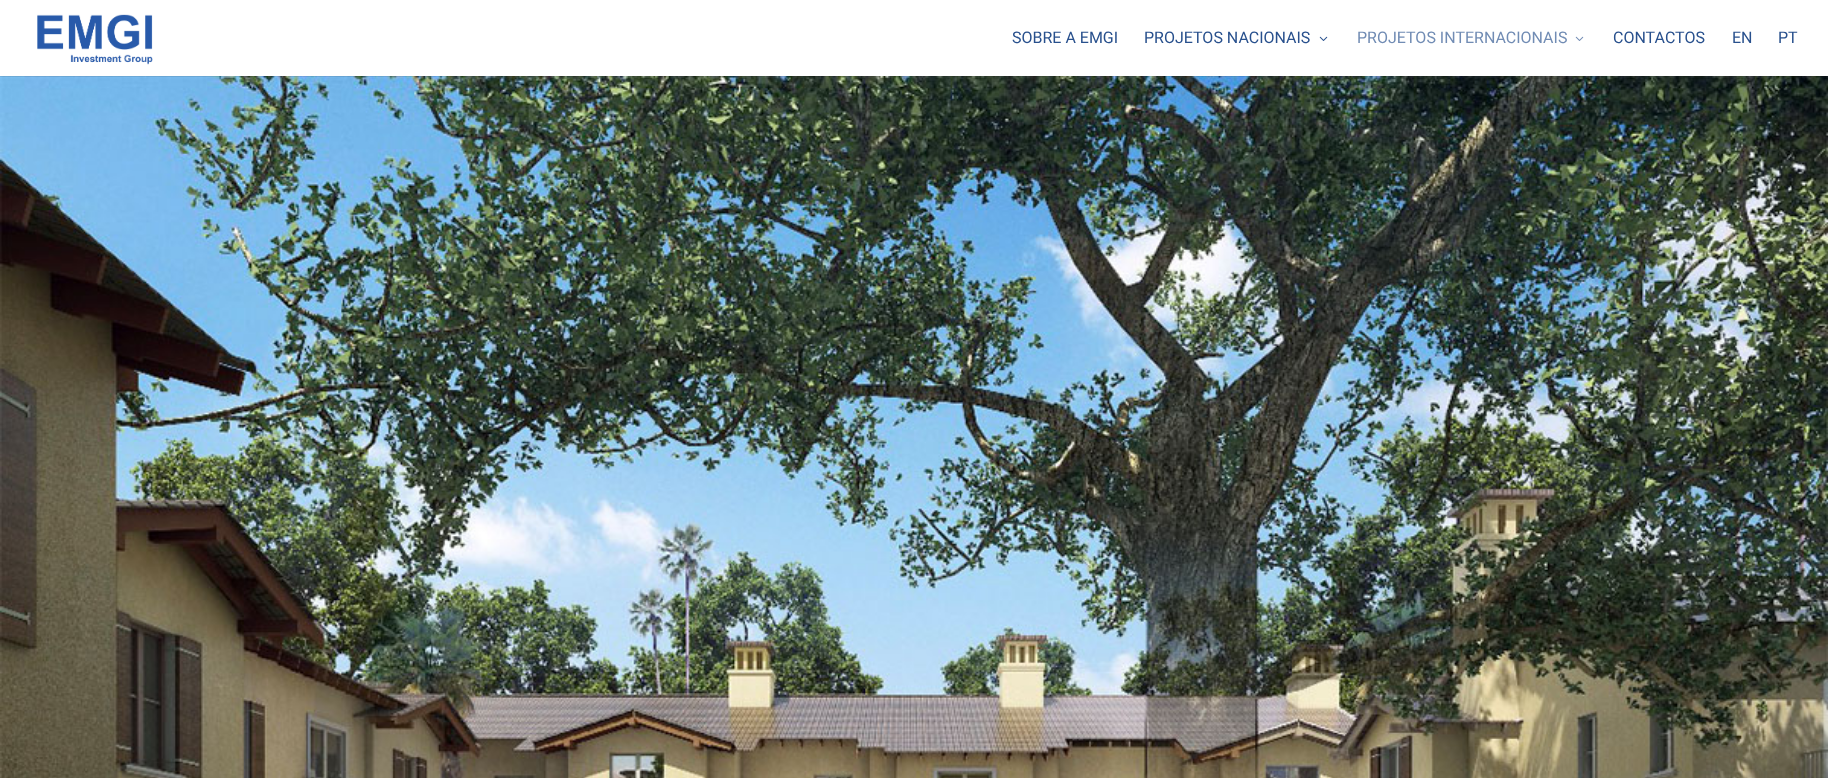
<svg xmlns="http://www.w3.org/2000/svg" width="1828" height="778">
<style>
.a{font:16px Roboto;fill:#28508d}
.b{font:16px Roboto;fill:#718cb4}
</style>
<rect width="100%" height="100%" fill="#fff"/>
<image href="4.png" x="0" y="76" width="1828" height="702"/>
<path fill="#0000001a" d="M0 76h1828v1H0z"/>
<image href="1.png" x="37" y="14" width="116" height="51"/>
<image href="2.png" x="1319" y="36" width="9" height="5"/>
<image href="3.png" x="1575" y="36" width="9" height="5"/>
<text class="a" x="1012" y="43">SOBRE A EMGI</text>
<text class="a" x="1144" y="43">PROJETOS NACIONAIS</text>
<text class="b" x="1357" y="43">PROJETOS INTERNACIONAIS</text>
<text class="a" x="1613" y="43">CONTACTOS</text>
<text class="a" x="1732" y="43">EN</text>
<text class="a" x="1778" y="43">PT</text>
</svg>
